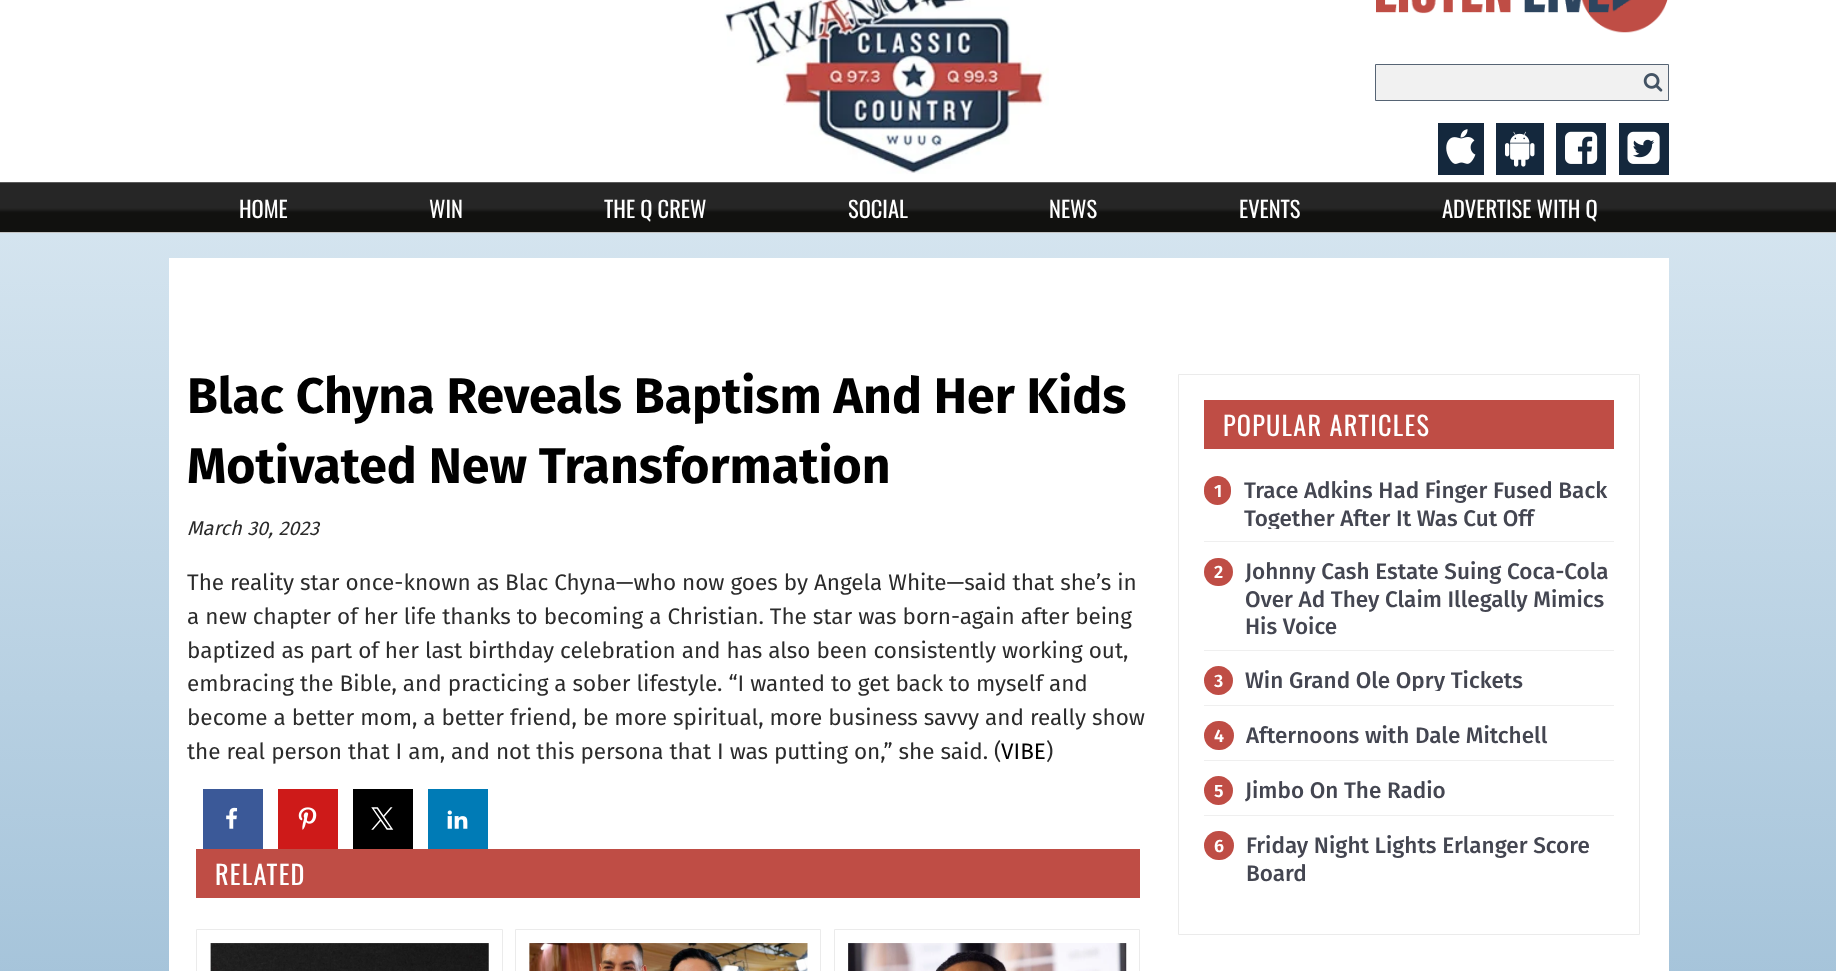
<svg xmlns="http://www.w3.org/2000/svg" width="1836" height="971">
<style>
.a{font:22.5px Oswald;fill:#fff}
.b{font:bold 50px Fira Sans;fill:#000}
.c{font:italic 20px Fira Sans;fill:#2b2b2b}
.d{font:22.5px Fira Sans;fill:#2b2b2b}
.e{font:22.5px Fira Sans;fill:#000}
.f{font:26.25px Oswald;letter-spacing:1.25px;fill:#fff}
.g{font:600 18px Fira Sans;fill:#fff}
.h{font:500 22.5px Fira Sans;fill:#444651}
</style>
<defs>
<linearGradient id="g1" gradientUnits="userSpaceOnUse" x1="918" y1="232" x2="918" y2="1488"><stop offset="0" stop-color="#d4e4ef"/><stop offset="1" stop-color="#86aecc"/></linearGradient>
<clipPath id="clip1"><path d="M1244 474h370v55H1244z"/></clipPath>
<clipPath id="clip2"><path d="M1245 664h279v27H1245z"/></clipPath>
</defs>
<rect width="100%" height="100%" fill="#fff"/>
<image href="1.png" x="724" y="0" width="325" height="174"/>
<image href="2.png" x="1376" y="0" width="292" height="33"/>
<path fill="#f1f1f1" stroke="#566474" d="M1375.5 64.5h293v36H1375.5z"/>
<image href="3.png" x="1643" y="73" width="20" height="19"/>
<path fill="#14283d" d="M1438 123h46v52H1438z"/>
<image href="4.png" x="1446" y="129" width="30" height="35"/>
<path fill="#14283d" d="M1496 123h48v52H1496z"/>
<image href="5.png" x="1505" y="131" width="30" height="36"/>
<path fill="#14283d" d="M1556 123h50v52H1556z"/>
<image href="6.png" x="1565" y="131" width="33" height="33"/>
<path fill="#14283d" d="M1619 123h50v52H1619z"/>
<image href="7.png" x="1627" y="131" width="33" height="33"/>
<image href="8.png" x="0" y="182" width="1836" height="51"/>
<path fill="url(#g1)" d="M0 233h1836v738H0z"/>
<path fill="#fff" d="M169 258h1500v713H169z"/>
<path fill="#3b5998" d="M203 789h60v60H203z"/>
<image href="9.png" x="226" y="807" width="12" height="22"/>
<path fill="#ce1a19" d="M278 789h60v60H278z"/>
<image href="10.png" x="298" y="807" width="19" height="23"/>
<path fill="#000" d="M353 789h60v60H353z"/>
<image href="11.png" x="371" y="807" width="23" height="23"/>
<path fill="#007bb6" d="M428 789h60v60H428z"/>
<image href="12.png" x="447" y="810" width="21" height="19"/>
<path fill="#bf4d45" d="M196 849h944v49H196z"/>
<path fill="none" stroke="#ebebeb" d="M196.5 929.5h306v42H196.5z"/>
<image href="13.png" x="210" y="943" width="279" height="28"/>
<path fill="none" stroke="#ebebeb" d="M515.5 929.5h305v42H515.5z"/>
<image href="14.png" x="529" y="943" width="279" height="28"/>
<path fill="none" stroke="#ebebeb" d="M834.5 929.5h305v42H834.5z"/>
<image href="15.png" x="848" y="943" width="279" height="28"/>
<path fill="none" stroke="#ebebeb" d="M1178.5 374.5h461v560H1178.5z"/>
<path fill="#bf4d45" d="M1204 400h410v49H1204z"/>
<path fill="#efefef" d="M1204 541h410v1H1204z"/>
<rect fill="#bf4d45" x="1204" y="476" width="27" height="29" rx="13.5"/>
<path fill="#efefef" d="M1204 650h410v1H1204z"/>
<rect fill="#bf4d45" x="1204" y="558" width="29" height="28" rx="14"/>
<path fill="#efefef" d="M1204 705h410v1H1204z"/>
<circle fill="#bf4d45" cx="1218.5" cy="680.5" r="14.5"/>
<path fill="#efefef" d="M1204 760h410v1H1204z"/>
<rect fill="#bf4d45" x="1204" y="721" width="30" height="29" rx="14.5"/>
<path fill="#efefef" d="M1204 815h410v1H1204z"/>
<circle fill="#bf4d45" cx="1218.5" cy="790.5" r="14.5"/>
<rect fill="#bf4d45" x="1204" y="831" width="30" height="29" rx="14.5"/>
<text class="a" x="239" y="218">HOME</text>
<text class="a" x="429" y="218">WIN</text>
<text class="a" x="604" y="218">THE Q CREW</text>
<text class="a" x="848" y="218">SOCIAL</text>
<text class="a" x="1049" y="218">NEWS</text>
<text class="a" x="1239" y="218">EVENTS</text>
<text class="a" x="1442" y="218">ADVERTISE WITH Q</text>
<text class="b" x="187" y="413">Blac Chyna Reveals Baptism And Her Kids</text>
<text class="b" x="187" y="483">Motivated New Transformation</text>
<text class="c" x="187" y="535">March 30, 2023</text>
<text class="d" x="187" y="590">The reality star once-known as Blac Chyna—who now goes by Angela White—said that she’s in</text>
<text class="d" x="187" y="624">a new chapter of her life thanks to becoming a Christian. The star was born-again after being</text>
<text class="d" x="187" y="658">baptized as part of her last birthday celebration and has also been consistently working out,</text>
<text class="d" x="187" y="691">embracing the Bible, and practicing a sober lifestyle. “I wanted to get back to myself and</text>
<text class="d" x="187" y="725">become a better mom, a better friend, be more spiritual, more business savvy and really show</text>
<text class="d" x="187" y="759">the real person that I am, and not this persona that I was putting on,” she said. (</text>
<text class="e" x="1001" y="759">VIBE</text>
<text class="d" x="1046" y="759">)</text>
<text class="f" x="215" y="885">RELATED</text>
<text class="f" x="1223" y="436">POPULAR ARTICLES</text>
<text class="g" x="1214" y="497">1</text>
<text class="h" x="1244" y="498">Trace Adkins Had Finger Fused Back</text>
<g clip-path="url(#clip1)">
<text class="h" x="1244" y="526">Together After It Was Cut Off</text>
</g>
<text class="g" x="1214" y="578">2</text>
<text class="h" x="1245" y="579">Johnny Cash Estate Suing Coca-Cola</text>
<text class="h" x="1245" y="607">Over Ad They Claim Illegally Mimics</text>
<text class="h" x="1245" y="634">His Voice</text>
<text class="g" x="1214" y="687">3</text>
<g clip-path="url(#clip2)">
<text class="h" x="1245" y="688">Win Grand Ole Opry Tickets</text>
</g>
<text class="g" x="1214" y="742">4</text>
<text class="h" x="1246" y="743">Afternoons with Dale Mitchell</text>
<text class="g" x="1214" y="797">5</text>
<text class="h" x="1245" y="798">Jimbo On The Radio</text>
<text class="g" x="1214" y="852">6</text>
<text class="h" x="1246" y="853">Friday Night Lights Erlanger Score</text>
<text class="h" x="1246" y="881">Board</text>
</svg>
